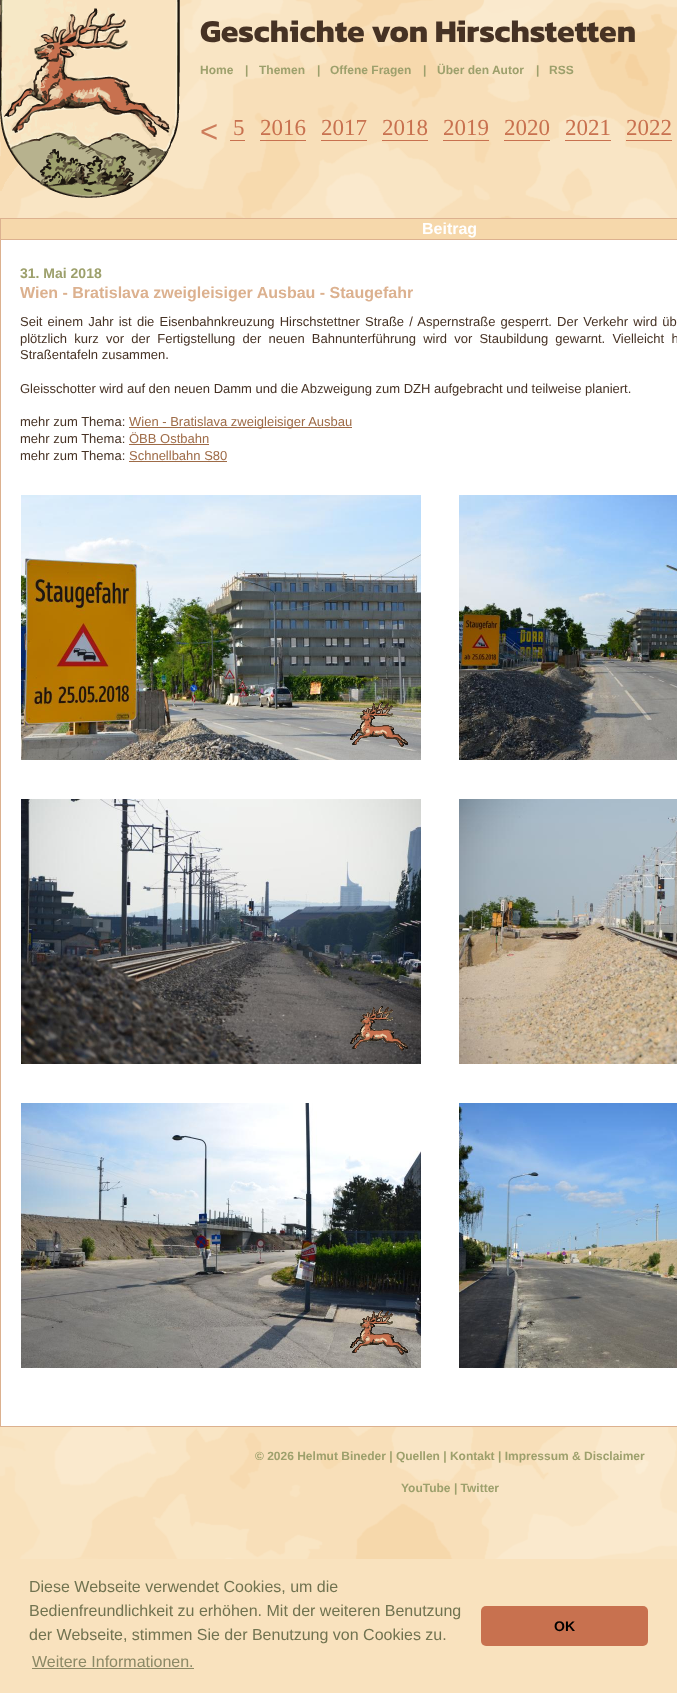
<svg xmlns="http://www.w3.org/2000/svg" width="677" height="1693">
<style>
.a{font:bold 32px Kanit;fill:#463224}
.b{font:bold 12px Liberation Sans;fill:#9da06c}
.c{font:31px Liberation Sans;fill:#cd7d5b}
.d{font:23px Liberation Serif;fill:#c8714f}
.e{font:bold 16px Liberation Sans;fill:#fff}
.f{font:bold 14px Liberation Sans;fill:#9da06c}
.g{font:bold 16px Liberation Sans;fill:#dcb18f}
.h{font:13px Liberation Sans;fill:#463224}
.i{font:13px Liberation Sans;fill:#9e6b47}
.j{font:16px Liberation Sans;fill:#717350}
.k{font:16px Liberation Sans;fill:#8c8966}
.l{font:bold 14px Liberation Sans;fill:#000}
</style>
<rect width="100%" height="100%" fill="#fff"/>
<image href="1.png" x="0" y="0" width="677" height="1559"/>
<image href="2.png" x="0" y="0" width="180" height="198"/>
<path fill="#c8714f" d="M230 140h15v1H230z"/>
<path fill="#c8714f" d="M260 140h46v1H260z"/>
<path fill="#c8714f" d="M321 140h46v1H321z"/>
<path fill="#c8714f" d="M382 140h46v1H382z"/>
<path fill="#c8714f" d="M443 140h46v1H443z"/>
<path fill="#c8714f" d="M504 140h46v1H504z"/>
<path fill="#c8714f" d="M565 140h46v1H565z"/>
<path fill="#c8714f" d="M626 140h46v1H626z"/>
<path fill="#f6d8ab" d="M1 219h676v20H1z"/>
<path fill="#dcb18f" d="M0 218h677v1H0z"/>
<path fill="#dcb18f" d="M0 218h1v21H0z"/>
<path fill="#fff" d="M1 240h676v1186H1z"/>
<path fill="#dcb18f" d="M0 239h677v1H0z"/>
<path fill="#dcb18f" d="M0 239h1v1187H0z"/>
<path fill="#9e6b47" d="M129 427h223v1H129z"/>
<path fill="#9e6b47" d="M129 444h80v1H129z"/>
<path fill="#9e6b47" d="M129 461h98v1H129z"/>
<image href="3.png" x="21" y="495" width="400" height="265"/>
<image href="4.png" x="459" y="495" width="218" height="265"/>
<image href="5.png" x="21" y="799" width="400" height="265"/>
<image href="6.png" x="459" y="799" width="218" height="265"/>
<image href="7.png" x="21" y="1103" width="400" height="265"/>
<image href="8.png" x="459" y="1103" width="218" height="265"/>
<path fill="#dcb18f" d="M0 1426h677v1H0z"/>
<path fill="#f9e2be" d="M0 1559h677v134H0z"/>
<path fill="#8c8966" d="M32 1668h162v1H32z"/>
<rect fill="#c8714f" x="481" y="1606" width="167" height="40" rx="5"/>
<text class="a" x="200" y="42">Geschichte von Hirschstetten</text>
<text class="b" x="200" y="74">Home</text>
<text class="b" x="245" y="74">|</text>
<text class="b" x="259" y="74">Themen</text>
<text class="b" x="317" y="74">|</text>
<text class="b" x="330" y="74">Offene Fragen</text>
<text class="b" x="423" y="74">|</text>
<text class="b" x="437" y="74">Über den Autor</text>
<text class="b" x="536" y="74">|</text>
<text class="b" x="549" y="74">RSS</text>
<text class="c" x="200" y="142">&lt;</text>
<text class="d" x="233" y="135">5</text>
<text class="d" x="260" y="135">2016</text>
<text class="d" x="321" y="135">2017</text>
<text class="d" x="382" y="135">2018</text>
<text class="d" x="443" y="135">2019</text>
<text class="d" x="504" y="135">2020</text>
<text class="d" x="565" y="135">2021</text>
<text class="d" x="626" y="135">2022</text>
<text class="e" x="422" y="234">Beitrag</text>
<text class="f" x="20" y="278">31. Mai 2018</text>
<text class="g" x="20" y="298">Wien - Bratislava zweigleisiger Ausbau - Staugefahr</text>
<text class="h" x="20" y="326" word-spacing="1.6">Seit einem Jahr ist die Eisenbahnkreuzung Hirschstettner Straße / Aspernstraße gesperrt. Der Verkehr wird üb</text>
<text class="h" x="20" y="343" word-spacing="3.6">plötzlich kurz vor der Fertigstellung der neuen Bahnunterführung wird vor Staubildung gewarnt. Vielleicht h</text>
<text class="h" x="20" y="359">Straßentafeln zusammen.</text>
<text class="h" x="20" y="393">Gleisschotter wird auf den neuen Damm und die Abzweigung zum DZH aufgebracht und teilweise planiert.</text>
<text class="h" x="20" y="426">mehr zum Thema:</text>
<text class="i" x="129" y="426">Wien - Bratislava zweigleisiger Ausbau</text>
<text class="h" x="20" y="443">mehr zum Thema:</text>
<text class="i" x="129" y="443">ÖBB Ostbahn</text>
<text class="h" x="20" y="460">mehr zum Thema:</text>
<text class="i" x="129" y="460">Schnellbahn S80</text>
<text class="b" x="255" y="1460">© 2026 Helmut Bineder | Quellen | Kontakt | Impressum &amp; Disclaimer</text>
<text class="b" x="401" y="1492">YouTube | Twitter</text>
<text class="j" x="29" y="1592">Diese Webseite verwendet Cookies, um die</text>
<text class="j" x="29" y="1616">Bedienfreundlichkeit zu erhöhen. Mit der weiteren Benutzung</text>
<text class="j" x="29" y="1640">der Webseite, stimmen Sie der Benutzung von Cookies zu.</text>
<text class="k" x="32" y="1667">Weitere Informationen.</text>
<text class="l" x="554" y="1631">OK</text>
</svg>
